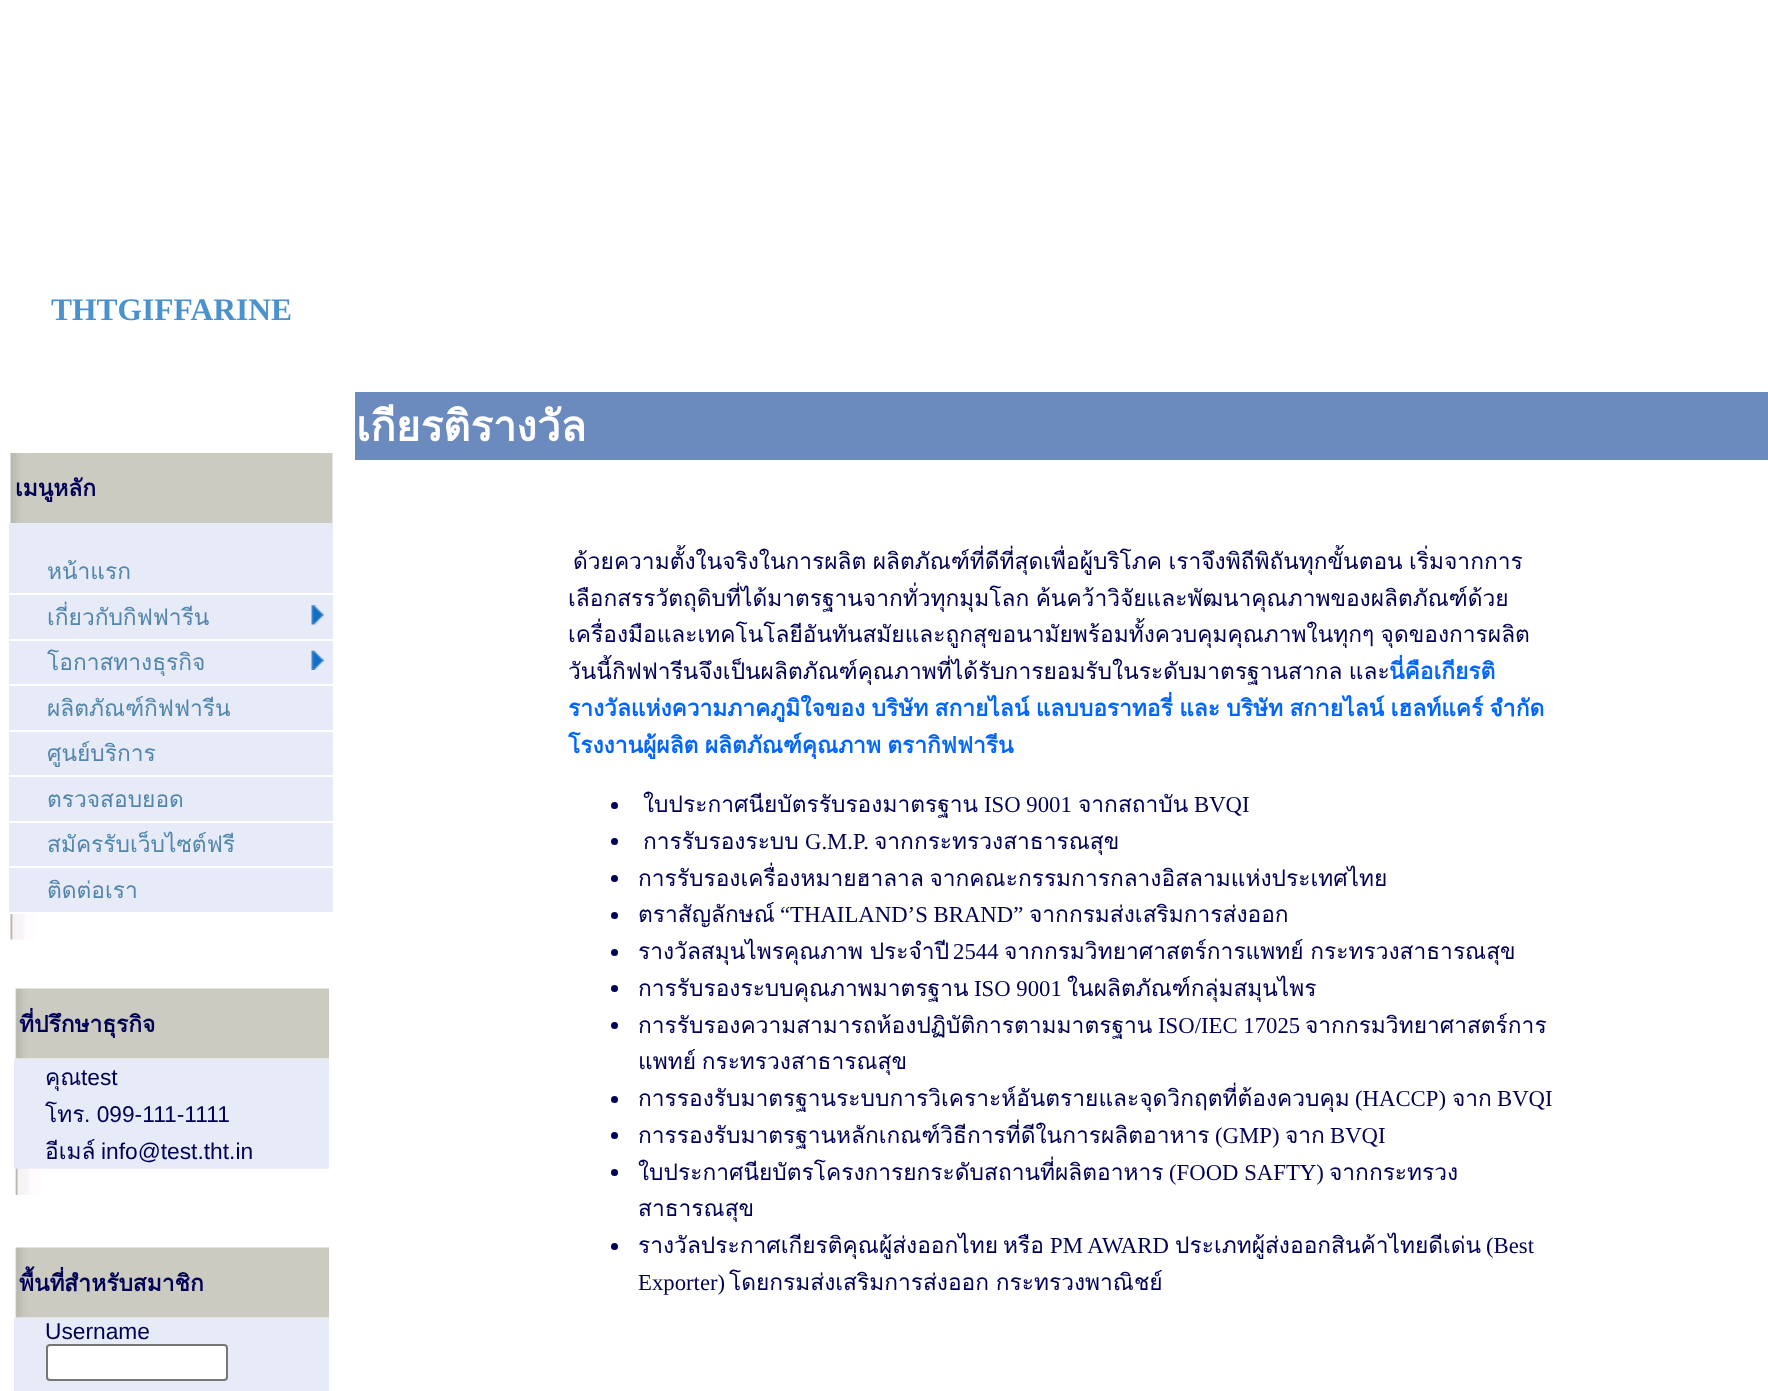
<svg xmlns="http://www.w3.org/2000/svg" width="1768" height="1391">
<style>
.a{font:bold 31.5px Liberation Serif;fill:#4a92ce}
.b{font:bold 22.75px Loma;fill:#000056}
.c{font:22.75px Loma;fill:#5286ad}
.d{font:22.75px Loma;fill:#000056}
.e{font:22.75px Liberation Sans;fill:#000056}
.f{font:bold 42px Loma;fill:#fff}
.g{font:bold 22.75px Loma;fill:#06f}
.h{font:22.75px Liberation Serif;fill:#000056}
</style>
<rect width="100%" height="100%" fill="#fff"/>
<image href="1.png" x="10" y="453" width="323" height="70"/>
<path fill="#e7ebf7" d="M9 523h324v343H9z"/>
<path fill="#fff" d="M9 593h324v2H9z"/>
<path fill="#fff" d="M9 639h324v2H9z"/>
<image href="2.png" x="311" y="605" width="13" height="20"/>
<path fill="#fff" d="M9 684h324v2H9z"/>
<image href="3.png" x="311" y="650" width="13" height="20"/>
<path fill="#fff" d="M9 730h324v2H9z"/>
<path fill="#fff" d="M9 775h324v2H9z"/>
<path fill="#fff" d="M9 821h324v2H9z"/>
<path fill="#e7ebf7" d="M9 868h324v44H9z"/>
<image href="4.png" x="9" y="914" width="324" height="26"/>
<image href="5.png" x="15" y="988" width="314" height="71"/>
<path fill="#e7ebf7" d="M14 1059h315v110H14z"/>
<image href="6.png" x="14" y="1168" width="315" height="27"/>
<image href="5.png" x="15" y="1247" width="314" height="71"/>
<path fill="#e7ebf7" d="M14 1318h315v73H14z"/>
<rect fill="#fff" stroke="#767676" stroke-width="2" x="47" y="1345" width="180" height="35" rx="3"/>
<path fill="#6b8abd" d="M355 392h1413v68H355z"/>
<circle fill="#000056" cx="614.5" cy="805.5" r="3.5"/>
<circle fill="#000056" cx="614.5" cy="841.5" r="3.5"/>
<circle fill="#000056" cx="614.5" cy="878.5" r="3.5"/>
<circle fill="#000056" cx="614.5" cy="915.5" r="3.5"/>
<circle fill="#000056" cx="614.5" cy="952.5" r="3.5"/>
<circle fill="#000056" cx="614.5" cy="988.5" r="3.5"/>
<circle fill="#000056" cx="614.5" cy="1025.5" r="3.5"/>
<circle fill="#000056" cx="614.5" cy="1099.5" r="3.5"/>
<circle fill="#000056" cx="614.5" cy="1135.5" r="3.5"/>
<circle fill="#000056" cx="614.5" cy="1172.5" r="3.5"/>
<circle fill="#000056" cx="614.5" cy="1246.5" r="3.5"/>
<text class="a" x="51" y="320">THTGIFFARINE</text>
<text class="b" x="15" y="496">เมนูหลัก</text>
<text class="c" x="47" y="579">หน้าแรก</text>
<text class="c" x="47" y="625">เกี่ยวกับกิฟฟารีน</text>
<text class="c" x="47" y="670">โอกาสทางธุรกิจ</text>
<text class="c" x="47" y="716">ผลิตภัณฑ์กิฟฟารีน</text>
<text class="c" x="47" y="761">ศูนย์บริการ</text>
<text class="c" x="47" y="807">ตรวจสอบยอด</text>
<text class="c" x="47" y="852">สมัครรับเว็บไซต์ฟรี</text>
<text class="c" x="47" y="898">ติดต่อเรา</text>
<text class="b" x="19" y="1032">ที่ปรึกษาธุรกิจ</text>
<text class="d" x="45" y="1085">คุณ</text>
<text class="e" x="81" y="1085">test</text>
<text class="d" x="45" y="1122">โทร</text>
<text class="e" x="84" y="1122">. 099-111-1111</text>
<text class="d" x="45" y="1159">อีเมล์</text>
<text class="e" x="101" y="1159">info@test.tht.in</text>
<text class="b" x="19" y="1291">พื้นที่สำหรับสมาชิก</text>
<text class="e" x="45" y="1339">Username</text>
<text class="f" x="356" y="441">เกียรติรางวัล</text>
<text class="d" x="573" y="569" word-spacing="-1.25">ด้วยความตั้งในจริงในการผลิต ผลิตภัณฑ์ที่ดีที่สุดเพื่อผู้บริโภค เราจึงพิถีพิถันทุกขั้นตอน เริ่มจากการ</text>
<text class="d" x="568" y="606" word-spacing="-1.25">เลือกสรรวัตถุดิบที่ได้มาตรฐานจากทั่วทุกมุมโลก ค้นคว้าวิจัยและพัฒนาคุณภาพของผลิตภัณฑ์ด้วย</text>
<text class="d" x="568" y="642" word-spacing="-1.25">เครื่องมือและเทคโนโลยีอันทันสมัยและถูกสุขอนามัยพร้อมทั้งควบคุมคุณภาพในทุกๆ จุดของการผลิต</text>
<text class="d" x="568" y="679" word-spacing="-1.25">วันนี้กิฟฟารีนจึงเป็นผลิตภัณฑ์คุณภาพที่ได้รับการยอมรับในระดับมาตรฐานสากล และ</text>
<text class="g" x="1389" y="679">นี่คือเกียรติ</text>
<text class="g" x="568" y="716" word-spacing="-1.25">รางวัลแห่งความภาคภูมิใจของ บริษัท สกายไลน์ แลบบอราทอรี่ และ บริษัท สกายไลน์ เฮลท์แคร์ จำกัด</text>
<text class="g" x="568" y="753" word-spacing="-1.25">โรงงานผู้ผลิต ผลิตภัณฑ์คุณภาพ ตรากิฟฟารีน</text>
<text class="d" x="643" y="812">ใบประกาศนียบัตรรับรองมาตรฐาน</text>
<text class="h" x="984" y="812">ISO 9001</text>
<text class="d" x="1078" y="812">จากสถาบัน</text>
<text class="h" x="1194" y="812">BVQI</text>
<text class="d" x="643" y="849">การรับรองระบบ</text>
<text class="h" x="805" y="849">G.M.P.</text>
<text class="d" x="874" y="849">จากกระทรวงสาธารณสุข</text>
<text class="d" x="638" y="886" word-spacing="-2">การรับรองเครื่องหมายฮาลาล จากคณะกรรมการกลางอิสลามแห่งประเทศไทย</text>
<text class="d" x="638" y="922">ตราสัญลักษณ์</text>
<text class="h" x="780" y="922">“THAILAND’S BRAND”</text>
<text class="d" x="1029" y="922">จากกรมส่งเสริมการส่งออก</text>
<text class="d" x="638" y="959" word-spacing="-1">รางวัลสมุนไพรคุณภาพ ประจำปี</text>
<text class="h" x="953" y="959">2544</text>
<text class="d" x="1004" y="959" word-spacing="-1">จากกรมวิทยาศาสตร์การแพทย์ กระทรวงสาธารณสุข</text>
<text class="d" x="638" y="996">การรับรองระบบคุณภาพมาตรฐาน</text>
<text class="h" x="974" y="996">ISO 9001</text>
<text class="d" x="1067" y="996">ในผลิตภัณฑ์กลุ่มสมุนไพร</text>
<text class="d" x="638" y="1033">การรับรองความสามารถห้องปฏิบัติการตามมาตรฐาน</text>
<text class="h" x="1158" y="1033">ISO/IEC 17025</text>
<text class="d" x="1305" y="1033">จากกรมวิทยาศาสตร์การ</text>
<text class="d" x="638" y="1069" word-spacing="-2">แพทย์ กระทรวงสาธารณสุข</text>
<text class="d" x="638" y="1106">การรองรับมาตรฐานระบบการวิเคราะห์อันตรายและจุดวิกฤตที่ต้องควบคุม</text>
<text class="h" x="1355" y="1106">(HACCP)</text>
<text class="d" x="1452" y="1106">จาก</text>
<text class="h" x="1497" y="1106">BVQI</text>
<text class="d" x="638" y="1143">การรองรับมาตรฐานหลักเกณฑ์วิธีการที่ดีในการผลิตอาหาร</text>
<text class="h" x="1215" y="1143">(GMP)</text>
<text class="d" x="1285" y="1143">จาก</text>
<text class="h" x="1330" y="1143">BVQI</text>
<text class="d" x="638" y="1180">ใบประกาศนียบัตรโครงการยกระดับสถานที่ผลิตอาหาร</text>
<text class="h" x="1169" y="1180">(FOOD SAFTY)</text>
<text class="d" x="1329" y="1180">จากกระทรวง</text>
<text class="d" x="638" y="1216">สาธารณสุข</text>
<text class="d" x="638" y="1253">รางวัลประกาศเกียรติคุณผู้ส่งออกไทย</text>
<text class="d" x="1003" y="1253">หรือ</text>
<text class="h" x="1050" y="1253">PM AWARD</text>
<text class="d" x="1175" y="1253">ประเภทผู้ส่งออกสินค้าไทยดีเด่น</text>
<text class="h" x="1486" y="1253">(Best</text>
<text class="h" x="638" y="1290">Exporter)</text>
<text class="d" x="729" y="1290" word-spacing="-1">โดยกรมส่งเสริมการส่งออก กระทรวงพาณิชย์</text>
</svg>
